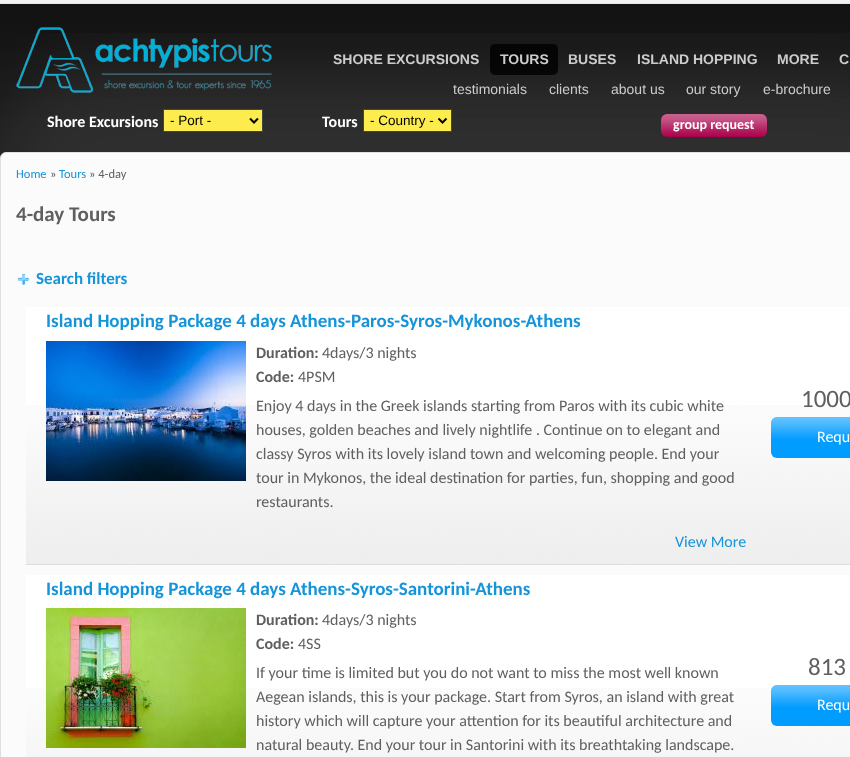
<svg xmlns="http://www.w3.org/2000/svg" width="850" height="757">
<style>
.a{font:bold 14px Liberation Sans;fill:#ccc}
.b{font:14px Liberation Sans;fill:#ccc}
.c{font:bold 16px Carlito;fill:#fff}
.d{font:13.5px Liberation Sans;fill:#000}
.e{font:bold 14px Carlito;fill:#fff}
.f{font:12.5px Carlito;fill:#1594d9}
.g{font:12.5px Carlito;fill:#5f5f5f}
.h{font:bold 21px Carlito;fill:#5f5f5f}
.i{font:bold 17px Carlito;fill:#1594d9}
.j{font:bold 19px Carlito;fill:#1594d9}
.k{font:bold 16px Carlito;fill:#5f5f5f}
.l{font:16px Carlito;fill:#5f5f5f}
.m{font:16px Carlito;fill:#1594d9}
.n{font:25px Carlito;fill:#5f5f5f}
.o{font:16px Carlito;fill:#fff}
</style>
<rect width="100%" height="100%" fill="#fff"/>
<image href="1.png" x="0" y="4" width="850" height="29"/>
<path fill="#f2f2f2" d="M0 0h850v3H0z"/>
<path fill="#e6e6e6" d="M0 3h850v1H0z"/>
<image href="2.png" x="0" y="33" width="850" height="125"/>
<image href="3.png" x="16" y="27" width="256" height="66"/>
<image href="4.png" x="490" y="44" width="68" height="31"/>
<path fill="#fdec4d" stroke="#444" d="M163.5 109.5h99v22H163.5z"/>
<path fill="none" stroke="#000" stroke-width="2" d="M250 118.5l4 4l4-4"/>
<path fill="#fdec4d" stroke="#444" d="M363.5 109.5h88v22H363.5z"/>
<path fill="none" stroke="#000" stroke-width="2" d="M438.5 118.5l4 4l4-4"/>
<rect fill="#a9014b" x="661" y="114" width="106" height="23" rx="6"/>
<image href="5.png" x="661" y="114" width="106" height="22"/>
<rect fill="#fbfbfb" stroke="#dfdfdf" x="0.5" y="152.5" width="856" height="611" rx="5.5"/>
<image href="6.png" x="17" y="273" width="13" height="13"/>
<path fill="#fff" d="M26 307h824v98H26z"/>
<image href="7.png" x="26" y="405" width="824" height="159"/>
<path fill="#ddd" d="M26 564h824v1H26z"/>
<image href="8.png" x="46" y="341" width="200" height="140"/>
<rect fill="#009cff" x="771" y="417" width="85" height="41" rx="6"/>
<image href="9.png" x="771" y="417" width="79" height="22"/>
<path fill="#fff" d="M26 575h824v113H26z"/>
<image href="10.png" x="26" y="688" width="824" height="69"/>
<image href="11.png" x="46" y="608" width="200" height="140"/>
<rect fill="#009cff" x="771" y="685" width="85" height="41" rx="6"/>
<image href="12.png" x="771" y="685" width="79" height="22"/>
<text class="a" x="333" y="64">SHORE EXCURSIONS</text>
<text class="a" x="500" y="64">TOURS</text>
<text class="a" x="568" y="64">BUSES</text>
<text class="a" x="637" y="64">ISLAND HOPPING</text>
<text class="a" x="777" y="64">MORE</text>
<text class="a" x="839" y="64">C</text>
<text class="b" x="453" y="94">testimonials</text>
<text class="b" x="549" y="94">clients</text>
<text class="b" x="611" y="94">about us</text>
<text class="b" x="686" y="94">our story</text>
<text class="b" x="763" y="94">e-brochure</text>
<text class="c" x="47" y="127">Shore Excursions</text>
<text class="d" x="170" y="125">- Port -</text>
<text class="c" x="322" y="127">Tours</text>
<text class="d" x="370" y="125">- Country -</text>
<text class="e" x="673" y="129">group request</text>
<text class="f" x="16" y="178">Home</text>
<text class="g" x="50" y="178">»</text>
<text class="f" x="59" y="178">Tours</text>
<text class="g" x="89" y="178">» 4-day</text>
<text class="h" x="16" y="221">4-day Tours</text>
<text class="i" x="36" y="284">Search filters</text>
<text class="j" x="46" y="327">Island Hopping Package 4 days Athens-Paros-Syros-Mykonos-Athens</text>
<text class="k" x="256" y="358">Duration:</text>
<text class="l" x="322" y="358">4days/3 nights</text>
<text class="k" x="256" y="382">Code:</text>
<text class="l" x="298" y="382">4PSM</text>
<text class="l" x="256" y="411">Enjoy 4 days in the Greek islands starting from Paros with its cubic white</text>
<text class="l" x="256" y="435">houses, golden beaches and lively nightlife . Continue on to elegant and</text>
<text class="l" x="256" y="459">classy Syros with its lovely island town and welcoming people. End your</text>
<text class="l" x="256" y="483">tour in Mykonos, the ideal destination for parties, fun, shopping and good</text>
<text class="l" x="256" y="507">restaurants.</text>
<text class="m" x="675" y="547">View More</text>
<text class="n" x="801" y="407">1000</text>
<text class="o" x="817" y="442">Requ</text>
<text class="j" x="46" y="595">Island Hopping Package 4 days Athens-Syros-Santorini-Athens</text>
<text class="k" x="256" y="625">Duration:</text>
<text class="l" x="322" y="625">4days/3 nights</text>
<text class="k" x="256" y="649">Code:</text>
<text class="l" x="298" y="649">4SS</text>
<text class="l" x="256" y="678">If your time is limited but you do not want to miss the most well known</text>
<text class="l" x="256" y="702">Aegean islands, this is your package. Start from Syros, an island with great</text>
<text class="l" x="256" y="726">history which will capture your attention for its beautiful architecture and</text>
<text class="l" x="256" y="750">natural beauty. End your tour in Santorini with its breathtaking landscape.</text>
<text class="n" x="808" y="675">813</text>
<text class="o" x="817" y="710">Requ</text>
</svg>
